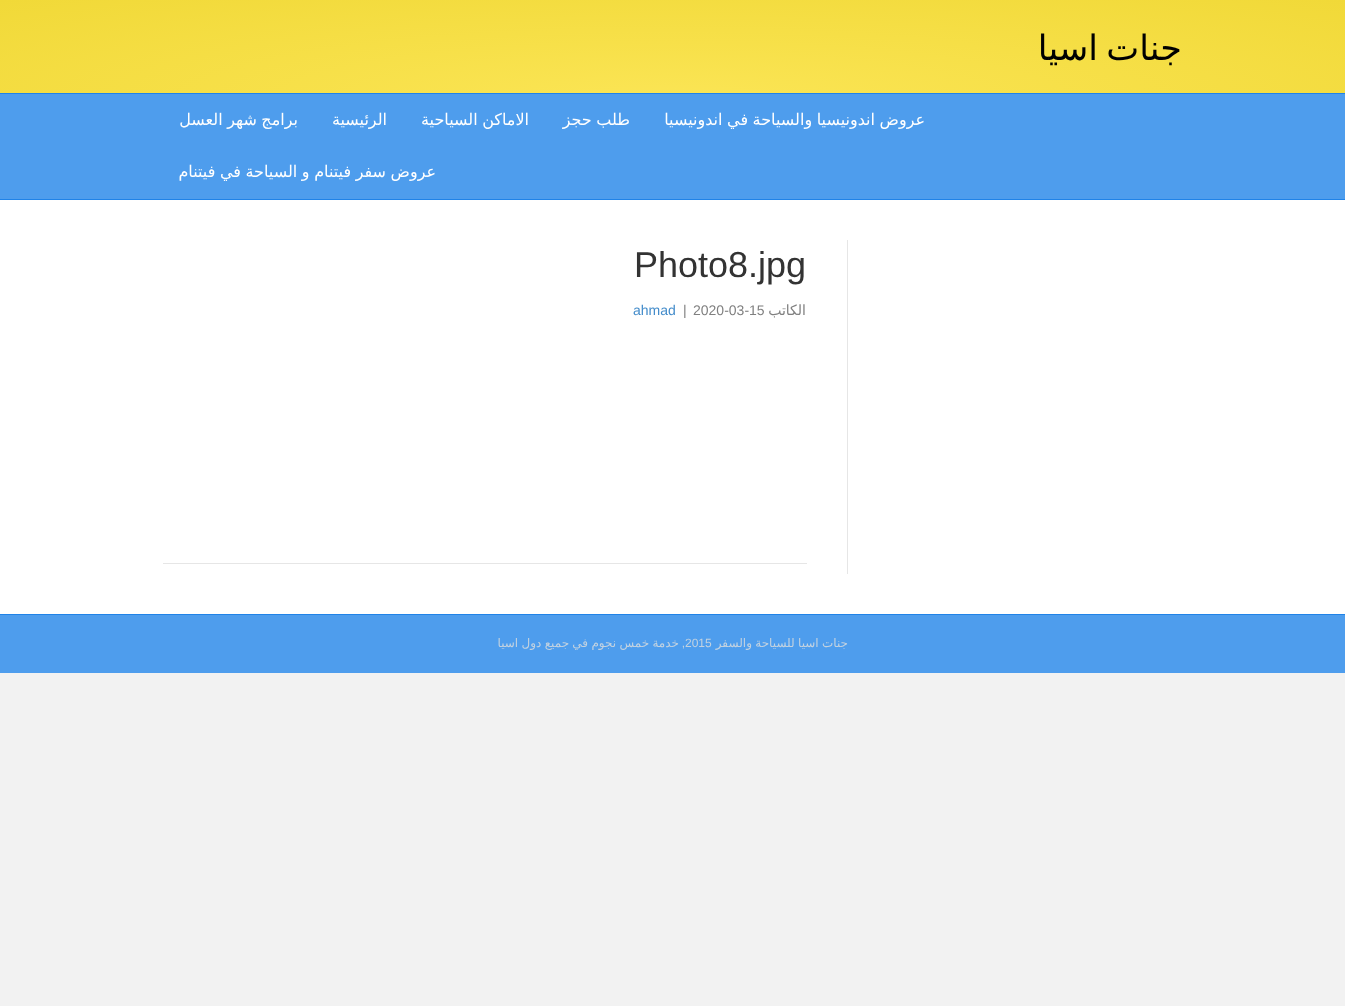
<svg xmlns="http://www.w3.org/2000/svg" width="1345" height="1006">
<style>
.a{font:35px DejaVu Sans;direction:rtl;fill:#000}
.b{font:16px DejaVu Sans;direction:rtl;fill:#fff}
.c{font:36px Liberation Sans;fill:#333}
.d{font:14px DejaVu Sans;direction:rtl;fill:#808080}
.e{font:14px Liberation Sans;fill:#808080}
.f{font:14px Liberation Sans;fill:#428bca}
.g{font:12px DejaVu Sans;direction:rtl;fill:#c2d2e0}
.h{font:12px Liberation Sans;fill:#c2d2e0}
.i{font:12px Liberation Sans;direction:rtl;fill:#c2d2e0}
</style>
<defs>
<radialGradient id="g1" gradientUnits="userSpaceOnUse" cx="0" cy="0" r="1" gradientTransform="matrix(951 0 0 141 673 100)"><stop offset="0" stop-color="#fbe555"/><stop offset="1" stop-color="#f1d938"/></radialGradient>
</defs>
<rect width="100%" height="100%" fill="#f2f2f2"/>
<path fill="url(#g1)" d="M0 0h1345v93H0z"/>
<path fill="#4e9ded" d="M0 94h1345v105H0z"/>
<path fill="#2083e8" d="M0 93h1345v1H0z"/>
<path fill="#2083e8" d="M0 199h1345v1H0z"/>
<path fill="#fff" d="M0 200h1345v414H0z"/>
<path fill="#e6e6e6" d="M847 240h1v334H847z"/>
<path fill="#e6e6e6" d="M163 563h644v1H163z"/>
<path fill="#4e9ded" d="M0 615h1345v58H0z"/>
<path fill="#2083e8" d="M0 614h1345v1H0z"/>
<text class="a" x="1182" y="60" word-spacing="-3">جنات اسيا</text>
<text class="b" x="925" y="125" word-spacing="-0.5">عروض اندونيسيا والسياحة في اندونيسيا</text>
<text class="b" x="630" y="125" word-spacing="-0.5">طلب حجز</text>
<text class="b" x="529" y="125" word-spacing="-0.5">الاماكن السياحية</text>
<text class="b" x="387" y="125">الرئيسية</text>
<text class="b" x="298" y="125" word-spacing="-0.5">برامج شهر العسل</text>
<text class="b" x="436" y="177" word-spacing="-0.5">عروض سفر فيتنام و السياحة في فيتنام</text>
<text class="c" x="634" y="277">Photo8.jpg</text>
<text class="d" x="806" y="315">الكاتب</text>
<text class="e" x="693" y="315">2020-03-15</text>
<text class="e" x="683" y="315">|</text>
<text class="f" x="633" y="315">ahmad</text>
<text class="g" x="848" y="647" word-spacing="-0.5">جنات اسيا للسياحة والسفر</text>
<text class="h" x="685" y="647">2015</text>
<text class="i" x="685" y="647">,</text>
<text class="g" x="679" y="647" word-spacing="-0.5">خدمة خمس نجوم في جميع دول اسيا</text>
</svg>
